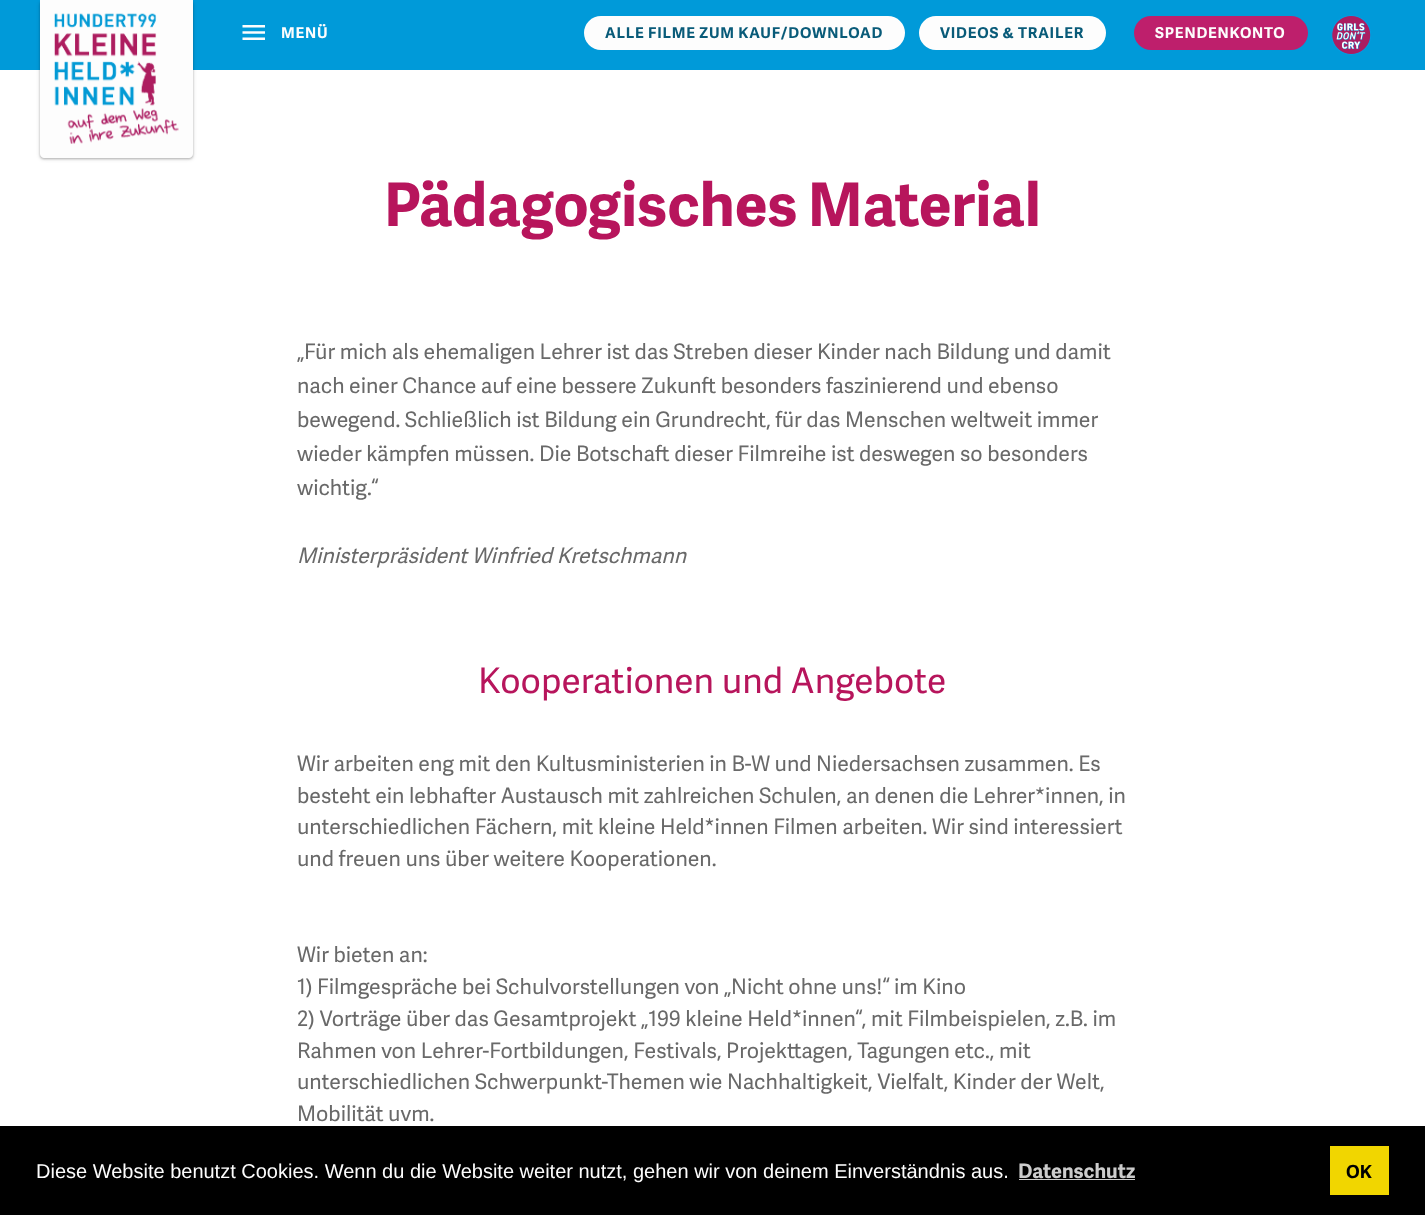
<svg xmlns="http://www.w3.org/2000/svg" width="1425" height="1215">
<style>
.a{font:bold 15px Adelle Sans;letter-spacing:0.8px;fill:#fdfdfd}
.b{font:bold 15px Adelle Sans;letter-spacing:0.8px;fill:#095b79}
.c{font:bold 60px Adelle Sans;fill:#b7155c}
.d{font:21.25px Adelle Sans;fill:#696969}
.e{font:italic 21.25px Adelle Sans;fill:#696969}
.f{font:35.25px Adelle Sans;fill:#b7155c}
.g{font:20px Liberation Sans;fill:#fdfdfd}
.h{font:bold 20px Adelle Sans;fill:#ccc}
.i{font:bold 18px Adelle Sans;fill:#000}
</style>
<rect width="100%" height="100%" fill="#fff"/>
<path fill="#009ad9" d="M0 0h1425v70H0z"/>
<rect fill="#0000003d" filter="blur(1px)" x="40" y="1" width="153" height="158" rx="4"/>
<rect fill="#0000001f" filter="blur(2px)" x="40" y="1" width="153" height="158" rx="4"/>
<path fill="#fdfdfd" d="M40 0h153v154c0 2-2 4-4 4h-145c-2 0-4-2-4-4z"/>
<image href="1.png" x="54" y="13" width="125" height="131"/>
<image href="2.png" x="242" y="25" width="23" height="15"/>
<rect fill="#fdfdfd" x="584" y="16" width="321" height="34" rx="17"/>
<rect fill="#fdfdfd" x="919" y="16" width="187" height="34" rx="17"/>
<rect fill="#be1f6c" x="1134" y="16" width="174" height="34" rx="17"/>
<image href="3.png" x="1331" y="15" width="40" height="40"/>
<path fill="#000" d="M0 1126h1425v89H0z"/>
<path fill="#ccc" d="M1019 1179h116v1H1019z"/>
<path fill="#f1d600" d="M1330 1146h59v49H1330z"/>
<text class="a" x="281" y="38">MENÜ</text>
<text class="b" x="605" y="38">ALLE FILME ZUM KAUF/DOWNLOAD</text>
<text class="b" x="940" y="38">VIDEOS &amp; TRAILER</text>
<text class="a" x="1155" y="38">SPENDENKONTO</text>
<text class="c" x="384" y="226">Pädagogisches Material</text>
<text class="d" x="297" y="359">„Für mich als ehemaligen Lehrer ist das Streben dieser Kinder nach Bildung und damit</text>
<text class="d" x="297" y="393">nach einer Chance auf eine bessere Zukunft besonders faszinierend und ebenso</text>
<text class="d" x="297" y="427">bewegend. Schließlich ist Bildung ein Grundrecht, für das Menschen weltweit immer</text>
<text class="d" x="297" y="461">wieder kämpfen müssen. Die Botschaft dieser Filmreihe ist deswegen so besonders</text>
<text class="d" x="297" y="495">wichtig.“</text>
<text class="e" x="297" y="563">Ministerpräsident Winfried Kretschmann</text>
<text class="f" x="478" y="693">Kooperationen und Angebote</text>
<text class="d" x="297" y="771">Wir arbeiten eng mit den Kultusministerien in B-W und Niedersachsen zusammen. Es</text>
<text class="d" x="297" y="803">besteht ein lebhafter Austausch mit zahlreichen Schulen, an denen die Lehrer*innen, in</text>
<text class="d" x="297" y="834">unterschiedlichen Fächern, mit kleine Held*innen Filmen arbeiten. Wir sind interessiert</text>
<text class="d" x="297" y="866">und freuen uns über weitere Kooperationen.</text>
<text class="d" x="297" y="962">Wir bieten an:</text>
<text class="d" x="297" y="994">1) Filmgespräche bei Schulvorstellungen von „Nicht ohne uns!“ im Kino</text>
<text class="d" x="297" y="1026">2) Vorträge über das Gesamtprojekt „199 kleine Held*innen“, mit Filmbeispielen, z.B. im</text>
<text class="d" x="297" y="1058">Rahmen von Lehrer-Fortbildungen, Festivals, Projekttagen, Tagungen etc., mit</text>
<text class="d" x="297" y="1089">unterschiedlichen Schwerpunkt-Themen wie Nachhaltigkeit, Vielfalt, Kinder der Welt,</text>
<text class="d" x="297" y="1121">Mobilität uvm.</text>
<text class="g" x="36" y="1178">Diese Website benutzt Cookies. Wenn du die Website weiter nutzt, gehen wir von deinem Einverständnis aus.</text>
<text class="h" x="1018" y="1178">Datenschutz</text>
<text class="i" x="1346" y="1178">OK</text>
</svg>
